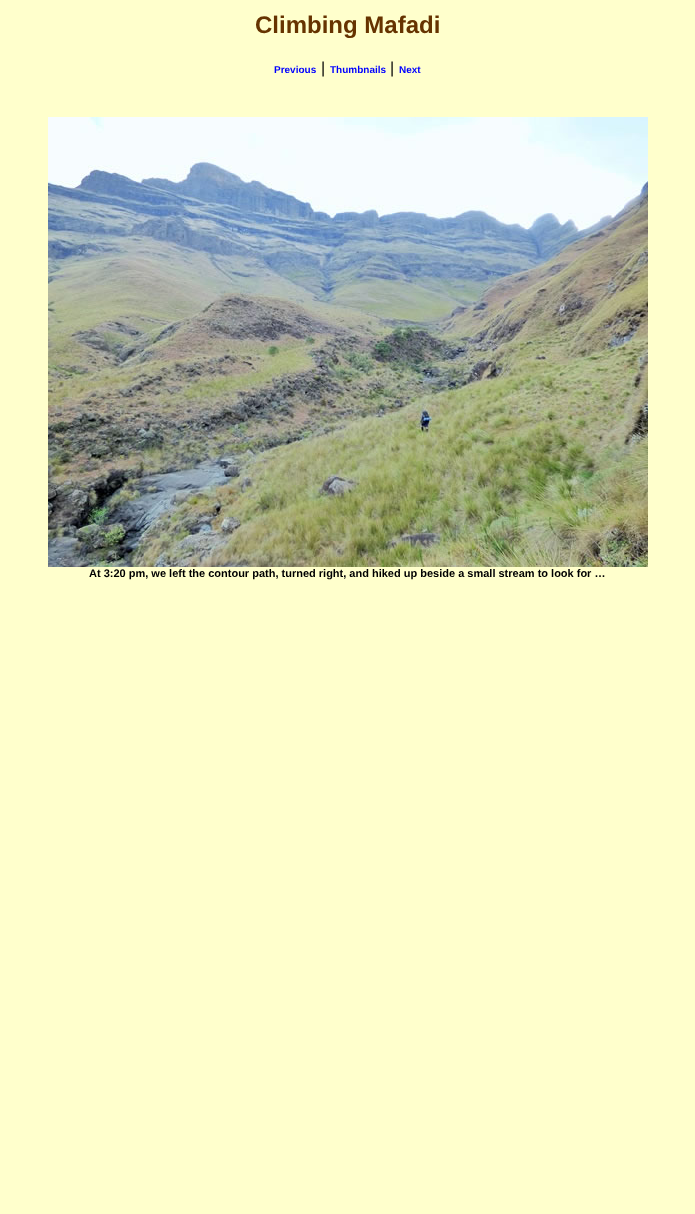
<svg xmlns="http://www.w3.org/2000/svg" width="695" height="1214">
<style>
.a{font:bold 24px Liberation Sans;fill:#630}
.b{font:bold 10px Liberation Sans;fill:#00f}
.c{font:16px Liberation Sans;fill:#000}
.d{font:bold 11px Liberation Sans;fill:#000}
</style>
<rect width="100%" height="100%" fill="#ffc"/>
<image href="1.png" x="48" y="117" width="600" height="450"/>
<text class="a" x="255" y="33">Climbing Mafadi</text>
<text class="b" x="274" y="73">Previous</text>
<text class="c" x="321" y="73">|</text>
<text class="b" x="330" y="73">Thumbnails</text>
<text class="c" x="390" y="73">|</text>
<text class="b" x="399" y="73">Next</text>
<text class="d" x="89" y="577">At 3:20 pm, we left the contour path, turned right, and hiked up beside a small stream to look for …</text>
</svg>
